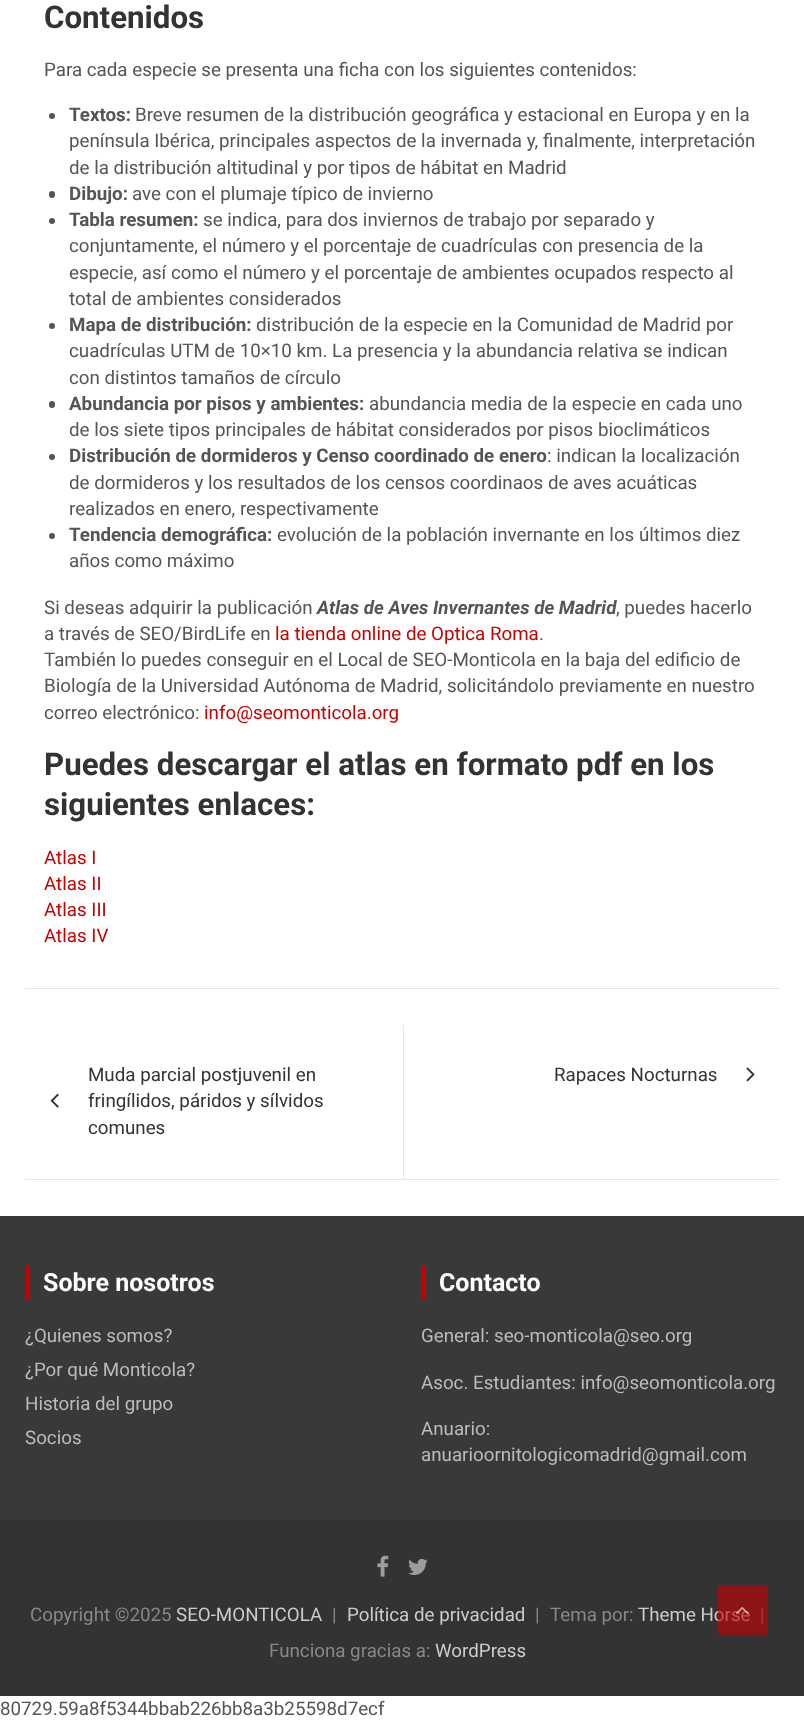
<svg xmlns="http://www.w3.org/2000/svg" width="804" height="1722">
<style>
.a{font:bold 31.25px Roboto;fill:#333}
.b{font:18.75px Roboto;fill:#555}
.c{font:bold 18.75px Roboto;fill:#555}
.d{font:italic bold 18.75px Roboto;fill:#555}
.e{font:18.75px Roboto;fill:#c80000}
.f{font:18.75px Roboto;fill:#333}
.g{font:bold 25px Roboto;fill:#fff}
.h{font:18.75px Roboto;fill:#bbb}
.i{font:18.75px Roboto;fill:#888}
.j{font:18.75px Roboto;fill:#ccc}
</style>
<rect width="100%" height="100%" fill="#fff"/>
<path fill="#0000001a" filter="blur(0.5px)" d="M25 -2h755v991H25z"/>
<path fill="#fff" d="M25 0h755v988H25z"/>
<circle fill="#555" cx="52" cy="116" r="3"/>
<rect fill="#555" x="49" y="191" width="6" height="7" rx="3"/>
<circle fill="#555" cx="52" cy="221" r="3"/>
<circle fill="#555" cx="52" cy="326" r="3"/>
<rect fill="#555" x="49" y="401" width="6" height="7" rx="3"/>
<circle fill="#555" cx="52" cy="457" r="3"/>
<circle fill="#555" cx="52" cy="536" r="3"/>
<path fill="#0000001a" filter="blur(0.5px)" d="M25 1026h755v154H25z"/>
<path fill="#fff" d="M25 1025h755v154H25z"/>
<image href="1.png" x="50" y="1093" width="9" height="15"/>
<path fill="#e6e6e6" d="M403 1025h1v154H403z"/>
<image href="2.png" x="746" y="1067" width="9" height="15"/>
<path fill="#393939" d="M0 1216h804v304H0z"/>
<path fill="#c80000" d="M25 1266h5v33H25z"/>
<path fill="#c80000" d="M421 1266h5v33H421z"/>
<path fill="#333" d="M0 1520h804v176H0z"/>
<image href="3.png" x="377" y="1555" width="12" height="22"/>
<image href="4.png" x="408" y="1558" width="20" height="17"/>
<text class="a" x="44" y="28">Contenidos</text>
<text class="b" x="44" y="76">Para cada especie se presenta una ficha con los siguientes contenidos:</text>
<text class="c" x="69" y="121">Textos:</text>
<text class="b" x="135" y="121">Breve resumen de la distribución geográfica y estacional en Europa y en la</text>
<text class="b" x="69" y="147">península Ibérica, principales aspectos de la invernada y, finalmente, interpretación</text>
<text class="b" x="69" y="174">de la distribución altitudinal y por tipos de hábitat en Madrid</text>
<text class="c" x="69" y="200">Dibujo:</text>
<text class="b" x="132" y="200">ave con el plumaje típico de invierno</text>
<text class="c" x="69" y="226">Tabla resumen:</text>
<text class="b" x="203" y="226">se indica, para dos inviernos de trabajo por separado y</text>
<text class="b" x="69" y="252">conjuntamente, el número y el porcentaje de cuadrículas con presencia de la</text>
<text class="b" x="69" y="279">especie, así como el número y el porcentaje de ambientes ocupados respecto al</text>
<text class="b" x="69" y="305">total de ambientes considerados</text>
<text class="c" x="69" y="331">Mapa de distribución:</text>
<text class="b" x="256" y="331">distribución de la especie en la Comunidad de Madrid por</text>
<text class="b" x="69" y="357">cuadrículas UTM de 10×10 km. La presencia y la abundancia relativa se indican</text>
<text class="b" x="69" y="384">con distintos tamaños de círculo</text>
<text class="c" x="69" y="410">Abundancia por pisos y ambientes:</text>
<text class="b" x="369" y="410">abundancia media de la especie en cada uno</text>
<text class="b" x="69" y="436">de los siete tipos principales de hábitat considerados por pisos bioclimáticos</text>
<text class="c" x="69" y="462">Distribución de dormideros y Censo coordinado de enero</text>
<text class="b" x="547" y="462">: indican la localización</text>
<text class="b" x="69" y="489">de dormideros y los resultados de los censos coordinaos de aves acuáticas</text>
<text class="b" x="69" y="515">realizados en enero, respectivamente</text>
<text class="c" x="69" y="541">Tendencia demográfica:</text>
<text class="b" x="277" y="541">evolución de la población invernante en los últimos diez</text>
<text class="b" x="69" y="567">años como máximo</text>
<text class="b" x="44" y="614">Si deseas adquirir la publicación</text>
<text class="d" x="317" y="614">Atlas de Aves Invernantes de Madrid</text>
<text class="b" x="616" y="614">, puedes hacerlo</text>
<text class="b" x="44" y="640">a través de SEO/BirdLife en</text>
<text class="e" x="275" y="640">la tienda online de Optica Roma</text>
<text class="b" x="539" y="640">.</text>
<text class="b" x="44" y="666">También lo puedes conseguir en el Local de SEO-Monticola en la baja del edificio de</text>
<text class="b" x="44" y="692">Biología de la Universidad Autónoma de Madrid, solicitándolo previamente en nuestro</text>
<text class="b" x="44" y="719">correo electrónico:</text>
<text class="e" x="204" y="719">info@seomonticola.org</text>
<text class="a" x="44" y="775">Puedes descargar el atlas en formato pdf en los</text>
<text class="a" x="44" y="815">siguientes enlaces:</text>
<text class="e" x="44" y="864">Atlas I</text>
<text class="e" x="44" y="890">Atlas II</text>
<text class="e" x="44" y="916">Atlas III</text>
<text class="e" x="44" y="942">Atlas IV</text>
<text class="f" x="88" y="1081">Muda parcial postjuvenil en</text>
<text class="f" x="88" y="1107">fringílidos, páridos y sílvidos</text>
<text class="f" x="88" y="1134">comunes</text>
<text class="f" x="554" y="1081">Rapaces Nocturnas</text>
<text class="g" x="43" y="1291">Sobre nosotros</text>
<text class="h" x="25" y="1342">¿Quienes somos?</text>
<text class="h" x="25" y="1376">¿Por qué Monticola?</text>
<text class="h" x="25" y="1410">Historia del grupo</text>
<text class="h" x="25" y="1444">Socios</text>
<text class="g" x="439" y="1291">Contacto</text>
<text class="h" x="421" y="1342">General: seo-monticola@seo.org</text>
<text class="h" x="421" y="1389">Asoc. Estudiantes: info@seomonticola.org</text>
<text class="h" x="421" y="1435">Anuario:</text>
<text class="h" x="421" y="1461">anuarioornitologicomadrid@gmail.com</text>
<text class="i" x="30" y="1621">Copyright ©2025</text>
<text class="j" x="176" y="1621">SEO-MONTICOLA</text>
<text class="i" x="332" y="1621">|</text>
<text class="j" x="347" y="1621">Política de privacidad</text>
<text class="i" x="535" y="1621">|</text>
<text class="i" x="550" y="1621">Tema por:</text>
<text class="j" x="638" y="1621">Theme Horse</text>
<text class="i" x="760" y="1621">|</text>
<text class="i" x="269" y="1657">Funciona gracias a:</text>
<text class="j" x="435" y="1657">WordPress</text>
<rect fill="#c8000099" x="718" y="1585" width="50" height="50" rx="4"/>
<image href="5.png" x="736" y="1606" width="13" height="8"/>
<text class="b" x="0" y="1715">80729.59a8f5344bbab226bb8a3b25598d7ecf</text>
</svg>
